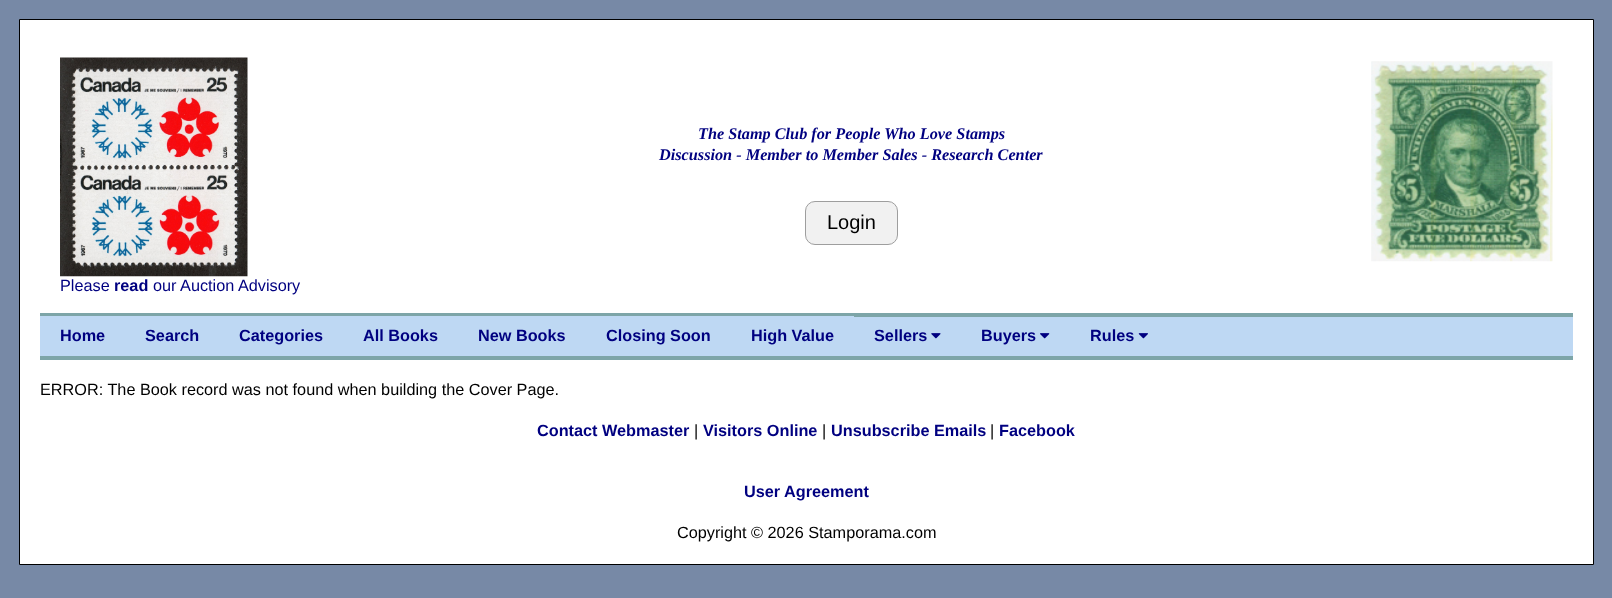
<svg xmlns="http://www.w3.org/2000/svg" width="1612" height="598">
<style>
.a{font:italic bold 16.25px Liberation Serif;fill:#000080}
.b{font:20px Liberation Sans;fill:#000}
.c{font:16.25px Liberation Sans;fill:#000080}
.d{font:bold 16.25px Liberation Sans;fill:#000080}
.e{font:16.25px Liberation Sans;fill:#000}
</style>
<rect width="100%" height="100%" fill="#7789a6"/>
<path fill="#fff" stroke="#000" d="M19.5 19.5h1574v545H19.5z"/>
<rect fill="#f1f1f1" stroke="#9e9e9e" x="805.5" y="201.5" width="92" height="43" rx="9.5"/>
<image href="1.png" x="1371" y="61" width="182" height="201"/>
<image href="2.png" x="60" y="57" width="188" height="220"/>
<path fill="#bed8f3" d="M854 317h719v39H854z"/>
<path fill="#7da5a8" d="M40 313h1533v4H40z"/>
<path fill="#7da5a8" d="M40 356h1533v4H40z"/>
<path fill="#bed8f3" d="M40 316h814v40H40z"/>
<image href="3.png" x="931" y="333" width="10" height="6"/>
<image href="4.png" x="1040" y="333" width="10" height="6"/>
<image href="5.png" x="1138" y="333" width="10" height="6"/>
<text class="a" x="698" y="139">The Stamp Club for People Who Love Stamps</text>
<text class="a" x="659" y="160">Discussion - Member to Member Sales - Research Center</text>
<text class="b" x="827" y="229">Login</text>
<text class="c" x="60" y="291">Please</text>
<text class="d" x="114" y="291">read</text>
<text class="c" x="153" y="291">our Auction Advisory</text>
<text class="d" x="60" y="341">Home</text>
<text class="d" x="145" y="341">Search</text>
<text class="d" x="239" y="341">Categories</text>
<text class="d" x="363" y="341">All Books</text>
<text class="d" x="478" y="341">New Books</text>
<text class="d" x="606" y="341">Closing Soon</text>
<text class="d" x="751" y="341">High Value</text>
<text class="d" x="874" y="341">Sellers</text>
<text class="d" x="981" y="341">Buyers</text>
<text class="d" x="1090" y="341">Rules</text>
<text class="e" x="40" y="395">ERROR: The Book record was not found when building the Cover Page.</text>
<text class="d" x="537" y="436">Contact Webmaster</text>
<text class="e" x="694" y="436">|</text>
<text class="d" x="703" y="436">Visitors Online</text>
<text class="e" x="822" y="436">|</text>
<text class="d" x="831" y="436">Unsubscribe Emails</text>
<text class="e" x="990" y="436">|</text>
<text class="d" x="999" y="436">Facebook</text>
<text class="d" x="744" y="497">User Agreement</text>
<text class="e" x="677" y="538">Copyright © 2026 Stamporama.com</text>
</svg>
